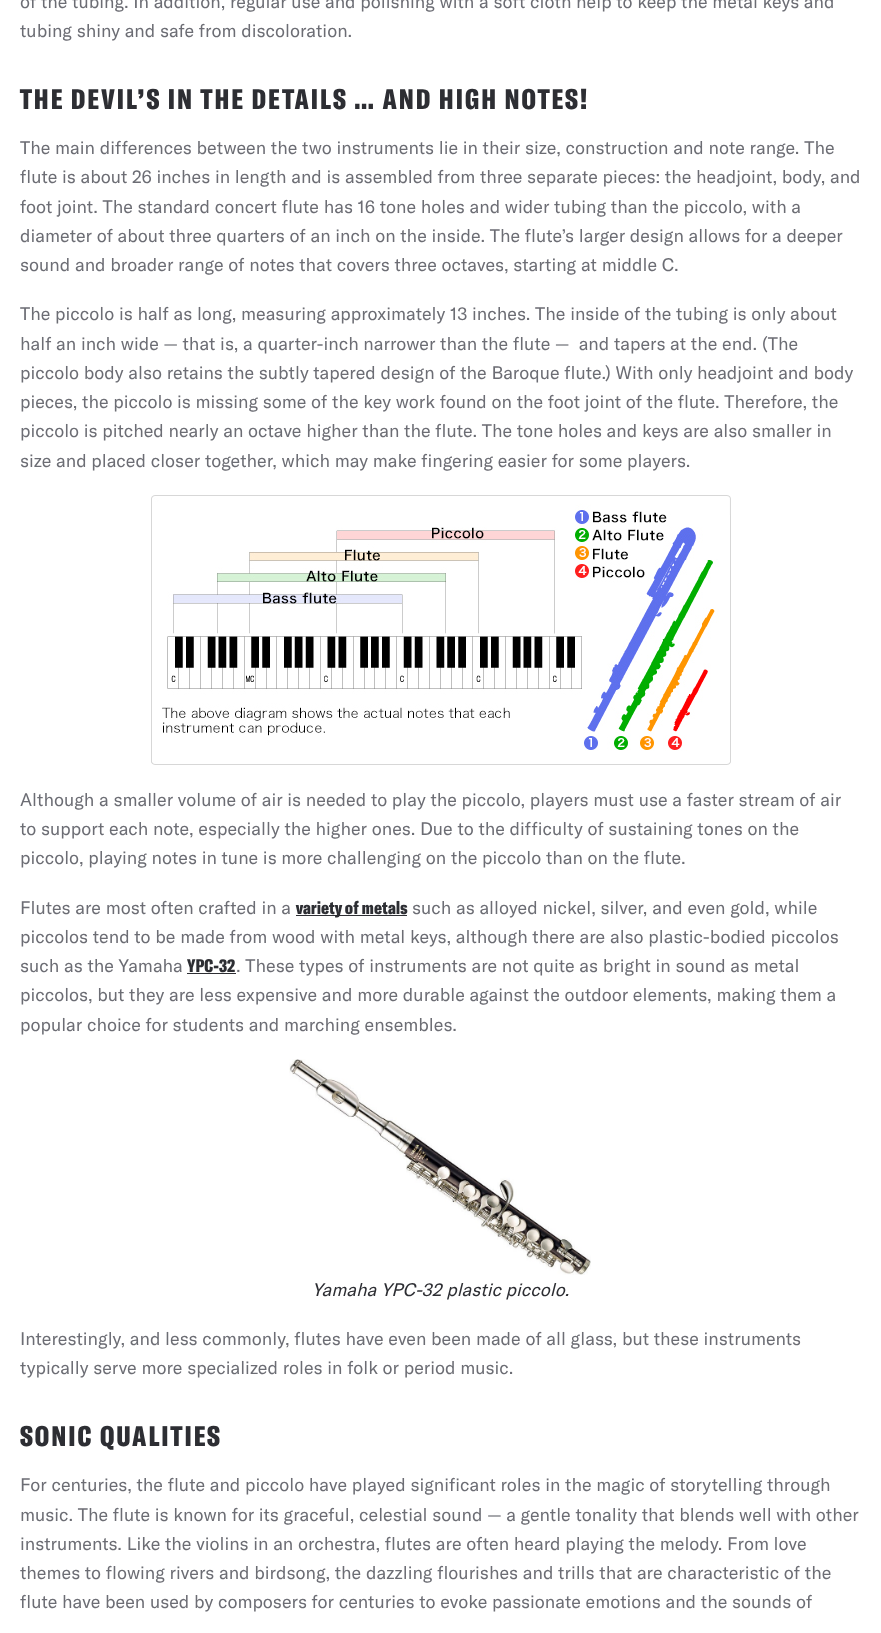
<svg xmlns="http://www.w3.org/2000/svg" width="881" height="1633">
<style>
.a{font:18px GT America;fill:#6c6d74}
.b{font:900 28px GT America;letter-spacing:2px;fill:#2d2e33}
.c{font:900 18px GT America;fill:#2d2e33}
.d{font:italic 18px GT America;fill:#2d2e33}
</style>
<rect width="100%" height="100%" fill="#fff"/>
<image href="1.png" x="151" y="495" width="580" height="270"/>
<path fill="#2d2e33" d="M296 915h111v1H296z"/>
<path fill="#2d2e33" d="M187 973h49v1H187z"/>
<image href="2.png" x="289" y="1059" width="302" height="216"/>
<text class="a" x="20" y="8">of the tubing. In addition, regular use and polishing with a soft cloth help to keep the metal keys and</text>
<text class="a" x="20" y="37">tubing shiny and safe from discoloration.</text>
<text class="b" x="20" y="109">THE DEVIL’S IN THE DETAILS … AND HIGH NOTES!</text>
<text class="a" x="20" y="154">The main differences between the two instruments lie in their size, construction and note range. The</text>
<text class="a" x="20" y="183">flute is about 26 inches in length and is assembled from three separate pieces: the headjoint, body, and</text>
<text class="a" x="20" y="213">foot joint. The standard concert flute has 16 tone holes and wider tubing than the piccolo, with a</text>
<text class="a" x="20" y="242">diameter of about three quarters of an inch on the inside. The flute’s larger design allows for a deeper</text>
<text class="a" x="20" y="271">sound and broader range of notes that covers three octaves, starting at middle C.</text>
<text class="a" x="20" y="320">The piccolo is half as long, measuring approximately 13 inches. The inside of the tubing is only about</text>
<text class="a" xml:space="preserve" x="20" y="350">half an inch wide — that is, a quarter-inch narrower than the flute —  and tapers at the end. (The</text>
<text class="a" x="20" y="379">piccolo body also retains the subtly tapered design of the Baroque flute.) With only headjoint and body</text>
<text class="a" x="20" y="408">pieces, the piccolo is missing some of the key work found on the foot joint of the flute. Therefore, the</text>
<text class="a" x="20" y="437">piccolo is pitched nearly an octave higher than the flute. The tone holes and keys are also smaller in</text>
<text class="a" x="20" y="467">size and placed closer together, which may make fingering easier for some players.</text>
<text class="a" x="20" y="806">Although a smaller volume of air is needed to play the piccolo, players must use a faster stream of air</text>
<text class="a" x="20" y="835">to support each note, especially the higher ones. Due to the difficulty of sustaining tones on the</text>
<text class="a" x="20" y="864">piccolo, playing notes in tune is more challenging on the piccolo than on the flute.</text>
<text class="a" x="20" y="914">Flutes are most often crafted in a</text>
<text class="c" x="296" y="914">variety of metals</text>
<text class="a" x="412" y="914">such as alloyed nickel, silver, and even gold, while</text>
<text class="a" x="20" y="943">piccolos tend to be made from wood with metal keys, although there are also plastic-bodied piccolos</text>
<text class="a" x="20" y="972">such as the Yamaha</text>
<text class="c" x="187" y="972">YPC-32</text>
<text class="a" x="236" y="972">. These types of instruments are not quite as bright in sound as metal</text>
<text class="a" x="20" y="1001">piccolos, but they are less expensive and more durable against the outdoor elements, making them a</text>
<text class="a" x="20" y="1031">popular choice for students and marching ensembles.</text>
<text class="d" x="312" y="1296">Yamaha YPC-32 plastic piccolo.</text>
<text class="a" x="20" y="1345">Interestingly, and less commonly, flutes have even been made of all glass, but these instruments</text>
<text class="a" x="20" y="1374">typically serve more specialized roles in folk or period music.</text>
<text class="b" x="20" y="1446">SONIC QUALITIES</text>
<text class="a" x="20" y="1491">For centuries, the flute and piccolo have played significant roles in the magic of storytelling through</text>
<text class="a" x="20" y="1521">music. The flute is known for its graceful, celestial sound — a gentle tonality that blends well with other</text>
<text class="a" x="20" y="1550">instruments. Like the violins in an orchestra, flutes are often heard playing the melody. From love</text>
<text class="a" x="20" y="1579">themes to flowing rivers and birdsong, the dazzling flourishes and trills that are characteristic of the</text>
<text class="a" x="20" y="1608">flute have been used by composers for centuries to evoke passionate emotions and the sounds of</text>
</svg>
